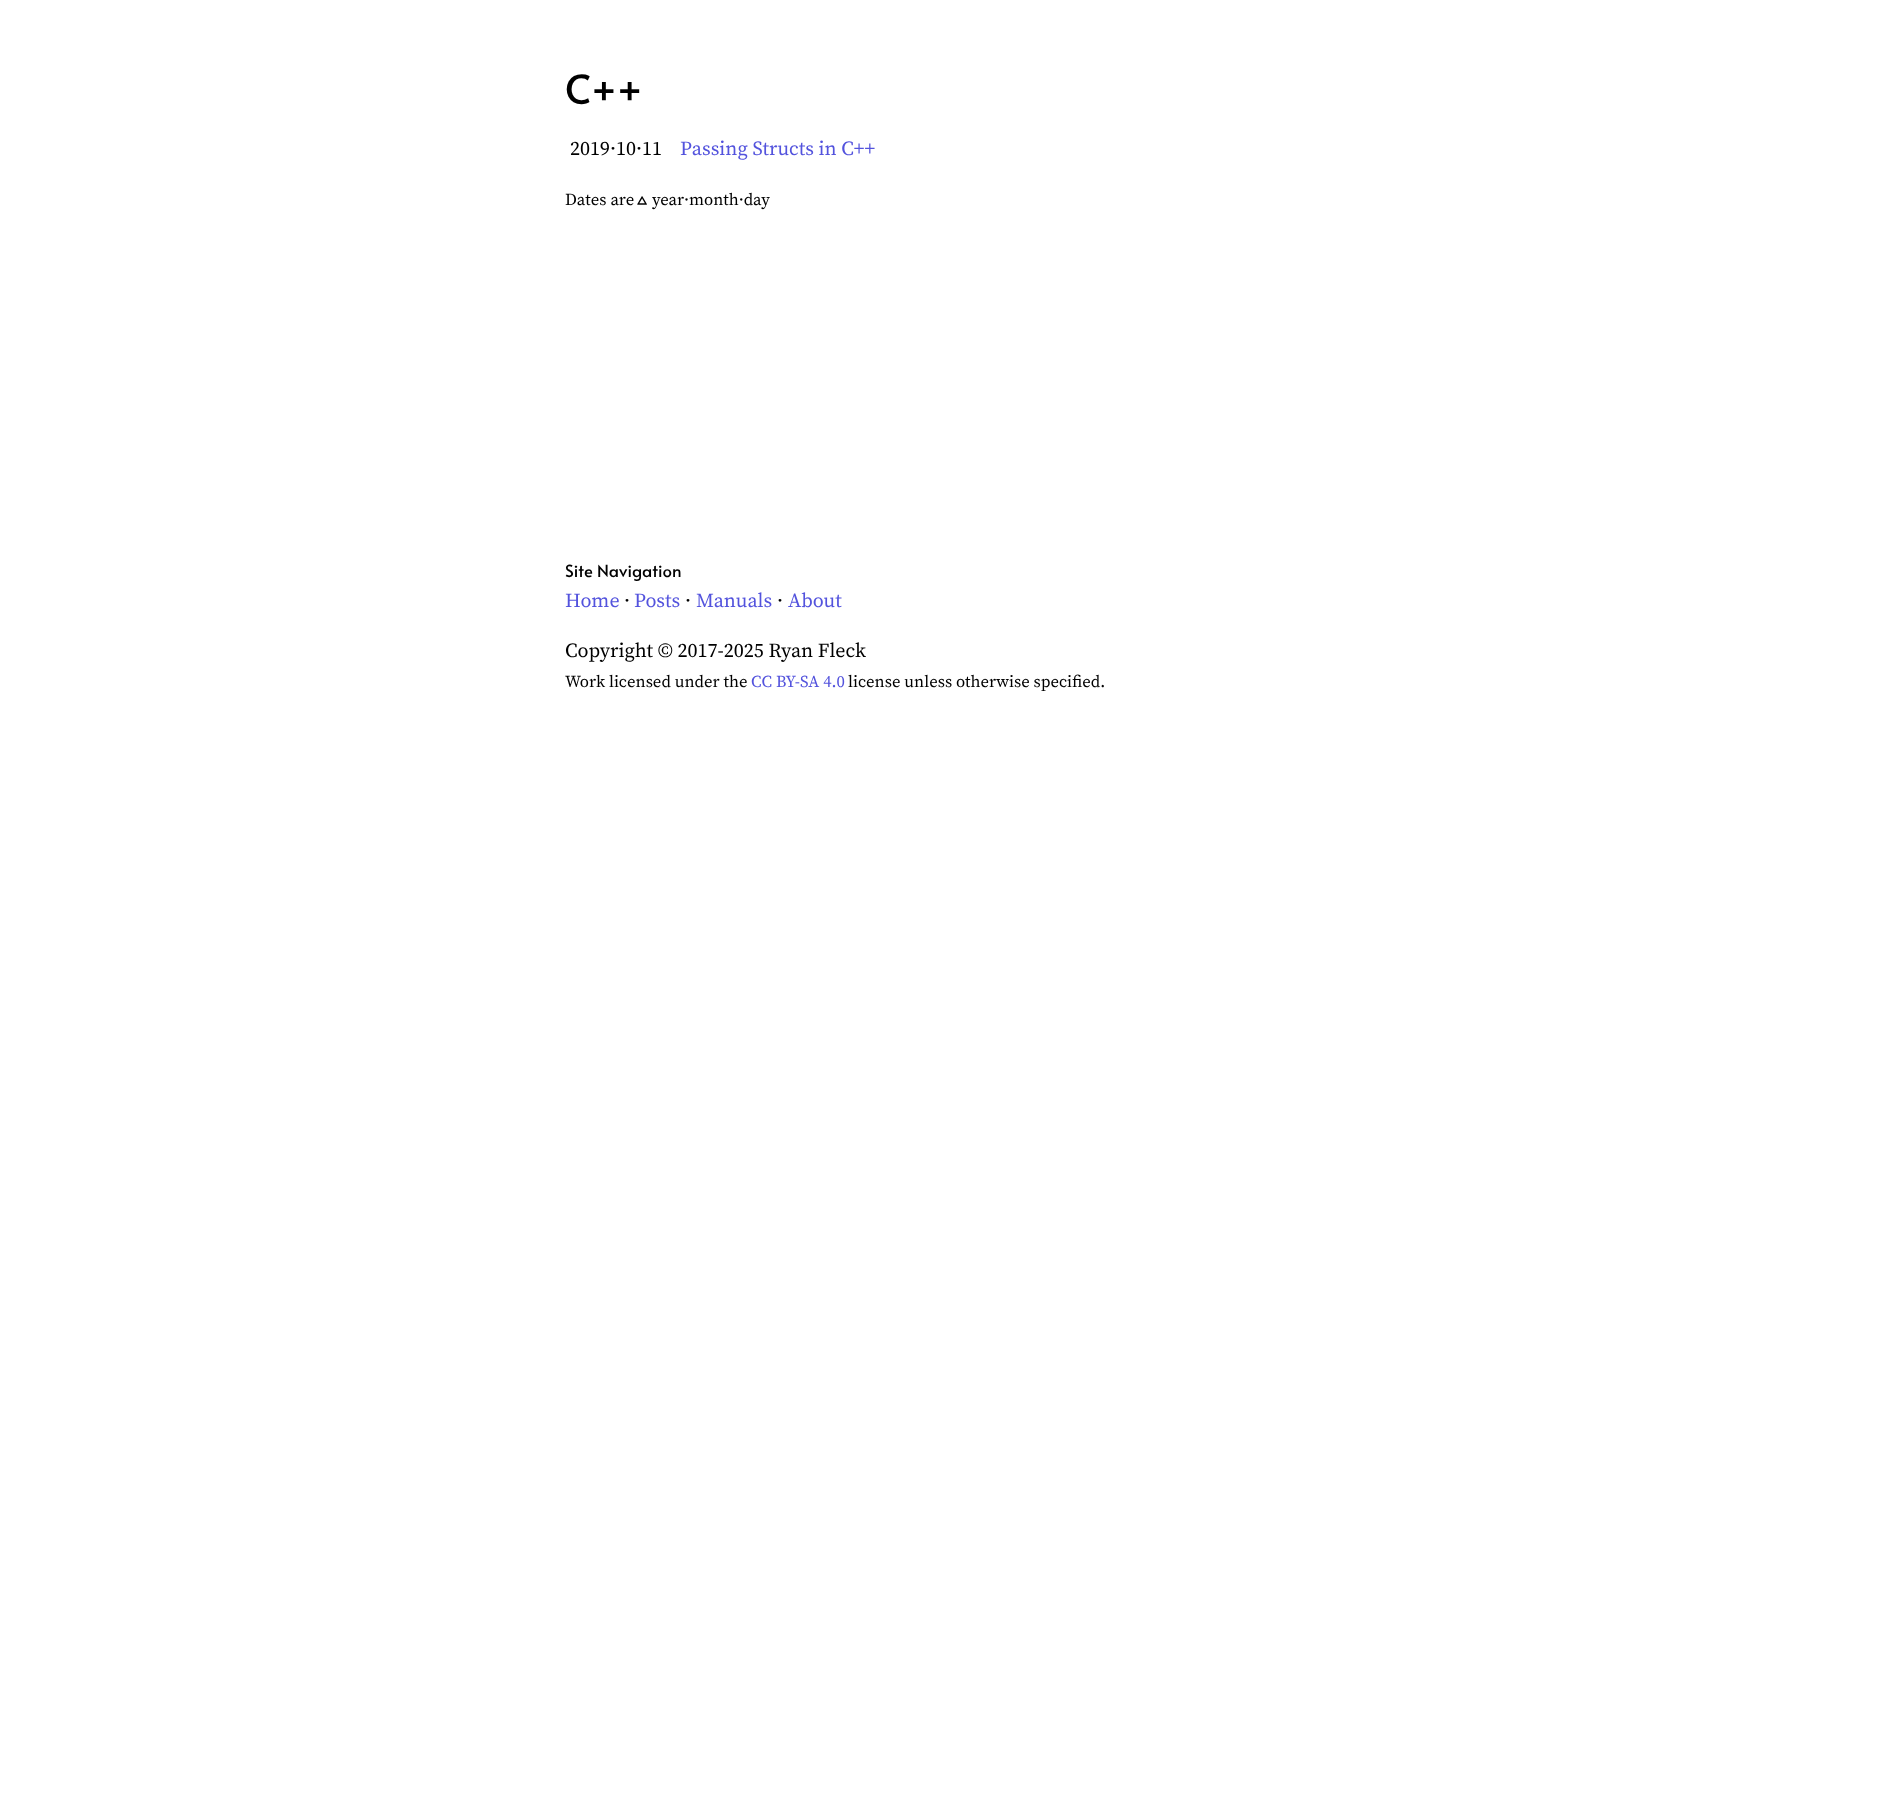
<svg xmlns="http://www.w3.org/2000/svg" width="1889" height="1802">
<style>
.a{font:40px Alata;fill:#000}
.b{font:20px Source Serif Pro;fill:#000}
.c{font:20px Source Serif Pro;fill:#5353dd}
.d{font:16.7px Source Serif Pro;fill:#000}
.e{font:bold 16.7px Source Serif Pro;fill:#000}
.f{font:16.7px Alata;fill:#000}
.g{font:16.7px Source Serif Pro;fill:#5353dd}
</style>
<rect width="100%" height="100%" fill="#fff"/>
<text class="a" x="565" y="104">C++</text>
<text class="b" x="570" y="155">2019·10·11</text>
<text class="c" x="680" y="155">Passing Structs in C++</text>
<text class="d" x="565" y="205">Dates are</text>
<text class="e" x="637" y="205">△</text>
<text class="d" x="652" y="205">year·month·day</text>
<text class="f" x="565" y="577">Site Navigation</text>
<text class="c" x="565" y="607">Home</text>
<text class="b" x="624" y="607">·</text>
<text class="c" x="634" y="607">Posts</text>
<text class="b" x="685" y="607">·</text>
<text class="c" x="696" y="607">Manuals</text>
<text class="b" x="777" y="607">·</text>
<text class="c" x="788" y="607">About</text>
<text class="b" x="565" y="657">Copyright © 2017-2025 Ryan Fleck</text>
<text class="d" x="565" y="687">Work licensed under the</text>
<text class="g" x="751" y="687">CC BY-SA 4.0</text>
<text class="d" x="848" y="687">license unless otherwise specified.</text>
</svg>
